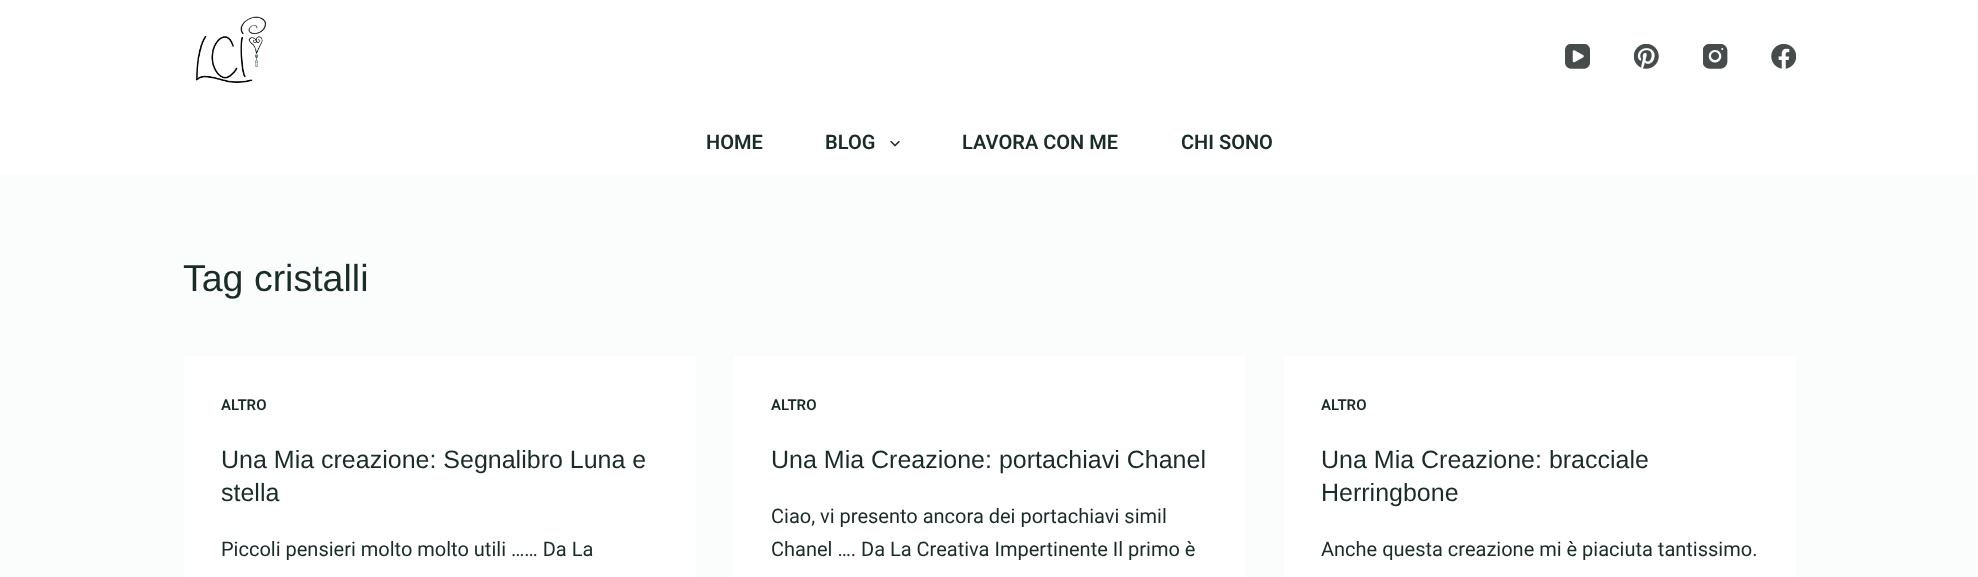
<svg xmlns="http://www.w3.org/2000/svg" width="1978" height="577">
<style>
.a{font:600 20px Roboto;fill:#192c27}
.b{font:37.5px Liberation Sans;fill:#192c27}
.c{font:600 15px Roboto;fill:#192c27}
.d{font:25px Liberation Sans;fill:#192c27}
.e{font:20px Roboto;fill:#192c27}
</style>
<rect width="100%" height="100%" fill="#fbfcfc"/>
<path fill="#fff" d="M0 0h1978v175H0z"/>
<image href="1.png" x="196" y="16" width="70" height="67"/>
<image href="2.png" x="1565" y="44" width="25" height="25"/>
<image href="3.png" x="1634" y="44" width="25" height="25"/>
<image href="4.png" x="1703" y="44" width="25" height="25"/>
<image href="5.png" x="1771" y="44" width="25" height="25"/>
<image href="6.png" x="890" y="141" width="10" height="6"/>
<path fill="#fff" d="M184 356h512v221H184z"/>
<path fill="#fff" d="M734 356h512v221H734z"/>
<path fill="#fff" d="M1284 356h512v221H1284z"/>
<text class="a" x="706" y="149">HOME</text>
<text class="a" x="825" y="149">BLOG</text>
<text class="a" x="962" y="149">LAVORA CON ME</text>
<text class="a" x="1181" y="149">CHI SONO</text>
<text class="b" x="183" y="291">Tag cristalli</text>
<text class="c" x="221" y="410">ALTRO</text>
<text class="d" x="221" y="468">Una Mia creazione: Segnalibro Luna e</text>
<text class="d" x="221" y="501">stella</text>
<text class="e" x="221" y="556">Piccoli pensieri molto molto utili …… Da La</text>
<text class="c" x="771" y="410">ALTRO</text>
<text class="d" x="771" y="468">Una Mia Creazione: portachiavi Chanel</text>
<text class="e" x="771" y="523">Ciao, vi presento ancora dei portachiavi simil</text>
<text class="e" x="771" y="556">Chanel …. Da La Creativa Impertinente Il primo è</text>
<text class="c" x="1321" y="410">ALTRO</text>
<text class="d" x="1321" y="468">Una Mia Creazione: bracciale</text>
<text class="d" x="1321" y="501">Herringbone</text>
<text class="e" x="1321" y="556">Anche questa creazione mi è piaciuta tantissimo.</text>
</svg>
